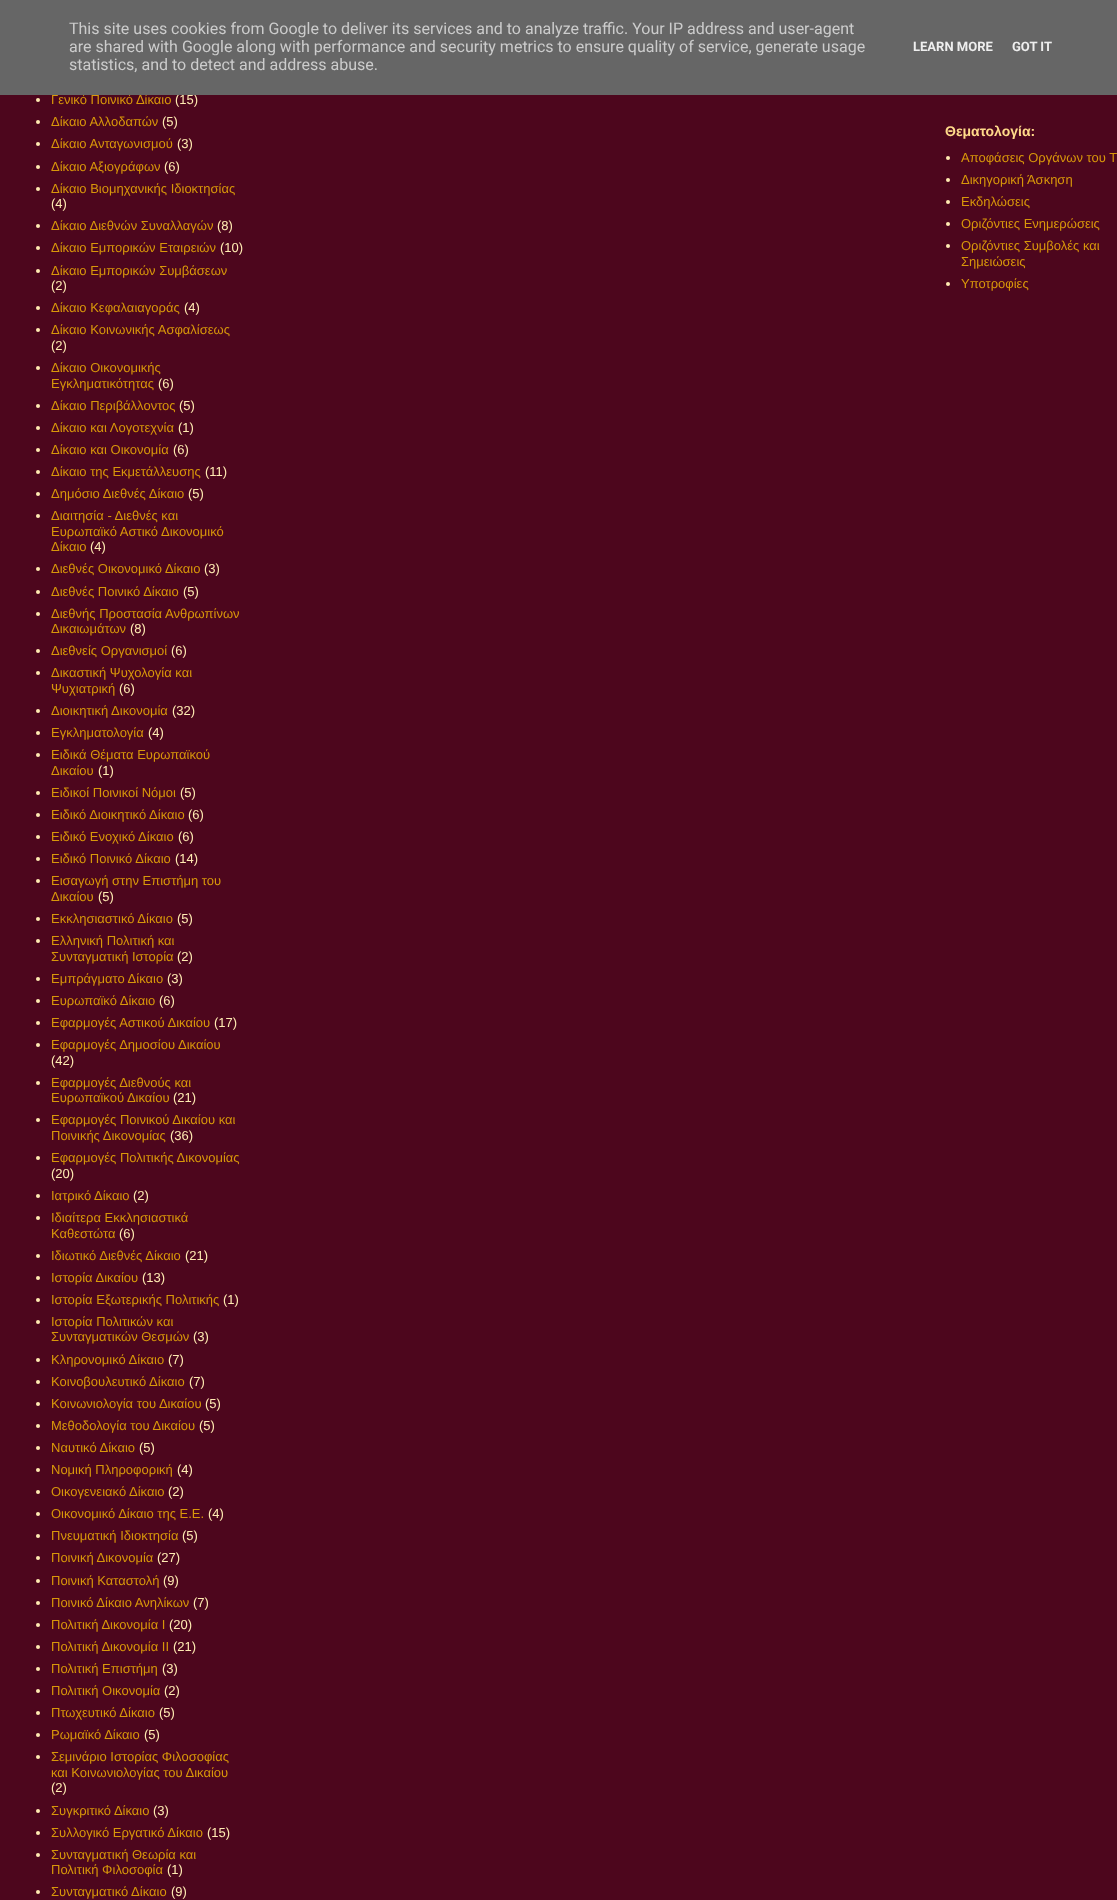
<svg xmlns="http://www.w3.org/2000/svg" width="1117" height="1900">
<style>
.a{font:13px Liberation Sans;fill:#d8970a}
.b{font:13px Liberation Sans;fill:#ffebb2}
.c{font:bold 13px Roboto;fill:#eee}
.d{font:16px Roboto;fill:#ccc}
.e{font:bold 14px Liberation Sans;fill:#ffda8a}
</style>
<rect width="100%" height="100%" fill="#4d061d"/>
<circle fill="#ffebb2" cx="38" cy="100" r="2"/>
<circle fill="#ffebb2" cx="38" cy="122" r="2"/>
<circle fill="#ffebb2" cx="38" cy="144" r="2"/>
<circle fill="#ffebb2" cx="38" cy="167" r="2"/>
<circle fill="#ffebb2" cx="38" cy="189" r="2"/>
<circle fill="#ffebb2" cx="38" cy="226" r="2"/>
<circle fill="#ffebb2" cx="38" cy="248" r="2"/>
<circle fill="#ffebb2" cx="38" cy="271" r="2"/>
<circle fill="#ffebb2" cx="38" cy="308" r="2"/>
<circle fill="#ffebb2" cx="38" cy="330" r="2"/>
<circle fill="#ffebb2" cx="38" cy="368" r="2"/>
<circle fill="#ffebb2" cx="38" cy="406" r="2"/>
<circle fill="#ffebb2" cx="38" cy="428" r="2"/>
<circle fill="#ffebb2" cx="38" cy="450" r="2"/>
<circle fill="#ffebb2" cx="38" cy="472" r="2"/>
<circle fill="#ffebb2" cx="38" cy="494" r="2"/>
<circle fill="#ffebb2" cx="38" cy="516" r="2"/>
<circle fill="#ffebb2" cx="38" cy="569" r="2"/>
<circle fill="#ffebb2" cx="38" cy="592" r="2"/>
<circle fill="#ffebb2" cx="38" cy="614" r="2"/>
<circle fill="#ffebb2" cx="38" cy="651" r="2"/>
<circle fill="#ffebb2" cx="38" cy="673" r="2"/>
<circle fill="#ffebb2" cx="38" cy="711" r="2"/>
<circle fill="#ffebb2" cx="38" cy="733" r="2"/>
<circle fill="#ffebb2" cx="38" cy="755" r="2"/>
<circle fill="#ffebb2" cx="38" cy="793" r="2"/>
<circle fill="#ffebb2" cx="38" cy="815" r="2"/>
<circle fill="#ffebb2" cx="38" cy="837" r="2"/>
<circle fill="#ffebb2" cx="38" cy="859" r="2"/>
<circle fill="#ffebb2" cx="38" cy="881" r="2"/>
<circle fill="#ffebb2" cx="38" cy="919" r="2"/>
<circle fill="#ffebb2" cx="38" cy="941" r="2"/>
<circle fill="#ffebb2" cx="38" cy="979" r="2"/>
<circle fill="#ffebb2" cx="38" cy="1001" r="2"/>
<circle fill="#ffebb2" cx="38" cy="1023" r="2"/>
<circle fill="#ffebb2" cx="38" cy="1045" r="2"/>
<circle fill="#ffebb2" cx="38" cy="1083" r="2"/>
<circle fill="#ffebb2" cx="38" cy="1120" r="2"/>
<circle fill="#ffebb2" cx="38" cy="1158" r="2"/>
<circle fill="#ffebb2" cx="38" cy="1196" r="2"/>
<circle fill="#ffebb2" cx="38" cy="1218" r="2"/>
<circle fill="#ffebb2" cx="38" cy="1256" r="2"/>
<circle fill="#ffebb2" cx="38" cy="1278" r="2"/>
<circle fill="#ffebb2" cx="38" cy="1300" r="2"/>
<circle fill="#ffebb2" cx="38" cy="1322" r="2"/>
<circle fill="#ffebb2" cx="38" cy="1360" r="2"/>
<circle fill="#ffebb2" cx="38" cy="1382" r="2"/>
<circle fill="#ffebb2" cx="38" cy="1404" r="2"/>
<circle fill="#ffebb2" cx="38" cy="1426" r="2"/>
<circle fill="#ffebb2" cx="38" cy="1448" r="2"/>
<circle fill="#ffebb2" cx="38" cy="1470" r="2"/>
<circle fill="#ffebb2" cx="38" cy="1492" r="2"/>
<circle fill="#ffebb2" cx="38" cy="1514" r="2"/>
<circle fill="#ffebb2" cx="38" cy="1536" r="2"/>
<circle fill="#ffebb2" cx="38" cy="1558" r="2"/>
<circle fill="#ffebb2" cx="38" cy="1581" r="2"/>
<circle fill="#ffebb2" cx="38" cy="1603" r="2"/>
<circle fill="#ffebb2" cx="38" cy="1625" r="2"/>
<circle fill="#ffebb2" cx="38" cy="1647" r="2"/>
<circle fill="#ffebb2" cx="38" cy="1669" r="2"/>
<circle fill="#ffebb2" cx="38" cy="1691" r="2"/>
<circle fill="#ffebb2" cx="38" cy="1713" r="2"/>
<circle fill="#ffebb2" cx="38" cy="1735" r="2"/>
<circle fill="#ffebb2" cx="38" cy="1757" r="2"/>
<circle fill="#ffebb2" cx="38" cy="1811" r="2"/>
<circle fill="#ffebb2" cx="38" cy="1833" r="2"/>
<circle fill="#ffebb2" cx="38" cy="1855" r="2"/>
<circle fill="#ffebb2" cx="38" cy="1892" r="2"/>
<circle fill="#ffebb2" cx="948" cy="158" r="2"/>
<circle fill="#ffebb2" cx="948" cy="180" r="2"/>
<circle fill="#ffebb2" cx="948" cy="202" r="2"/>
<circle fill="#ffebb2" cx="948" cy="224" r="2"/>
<circle fill="#ffebb2" cx="948" cy="246" r="2"/>
<circle fill="#ffebb2" cx="948" cy="284" r="2"/>
<text class="a" x="51" y="104">Γενικό Ποινικό Δίκαιο</text>
<text class="b" x="175" y="104">(15)</text>
<path fill="#666" d="M0 0h1117v95H0z"/>
<text class="c" x="1012" y="51">GOT IT</text>
<text class="c" x="913" y="51">LEARN MORE</text>
<text class="d" x="69" y="70">statistics, and to detect and address abuse.</text>
<text class="d" x="69" y="52">are shared with Google along with performance and security metrics to ensure quality of service, generate usage</text>
<text class="d" x="69" y="34">This site uses cookies from Google to deliver its services and to analyze traffic. Your IP address and user-agent</text>
<text class="a" x="51" y="126">Δίκαιο Αλλοδαπών</text>
<text class="b" x="162" y="126">(5)</text>
<text class="a" x="51" y="148">Δίκαιο Ανταγωνισμού</text>
<text class="b" x="177" y="148">(3)</text>
<text class="a" x="51" y="171">Δίκαιο Αξιογράφων</text>
<text class="b" x="164" y="171">(6)</text>
<text class="a" x="51" y="193">Δίκαιο Βιομηχανικής Ιδιοκτησίας</text>
<text class="b" x="51" y="208">(4)</text>
<text class="a" x="51" y="230">Δίκαιο Διεθνών Συναλλαγών</text>
<text class="b" x="217" y="230">(8)</text>
<text class="a" x="51" y="252">Δίκαιο Εμπορικών Εταιρειών</text>
<text class="b" x="220" y="252">(10)</text>
<text class="a" x="51" y="275">Δίκαιο Εμπορικών Συμβάσεων</text>
<text class="b" x="51" y="290">(2)</text>
<text class="a" x="51" y="312">Δίκαιο Κεφαλαιαγοράς</text>
<text class="b" x="184" y="312">(4)</text>
<text class="a" x="51" y="334">Δίκαιο Κοινωνικής Ασφαλίσεως</text>
<text class="b" x="51" y="350">(2)</text>
<text class="a" x="51" y="372">Δίκαιο Οικονομικής</text>
<text class="a" x="51" y="388">Εγκληματικότητας</text>
<text class="b" x="158" y="388">(6)</text>
<text class="a" x="51" y="410">Δίκαιο Περιβάλλοντος</text>
<text class="b" x="179" y="410">(5)</text>
<text class="a" x="51" y="432">Δίκαιο και Λογοτεχνία</text>
<text class="b" x="178" y="432">(1)</text>
<text class="a" x="51" y="454">Δίκαιο και Οικονομία</text>
<text class="b" x="173" y="454">(6)</text>
<text class="a" x="51" y="476">Δίκαιο της Εκμετάλλευσης</text>
<text class="b" x="205" y="476">(11)</text>
<text class="a" x="51" y="498">Δημόσιο Διεθνές Δίκαιο</text>
<text class="b" x="188" y="498">(5)</text>
<text class="a" x="51" y="520">Διαιτησία - Διεθνές και</text>
<text class="a" x="51" y="536">Ευρωπαϊκό Αστικό Δικονομικό</text>
<text class="a" x="51" y="551">Δίκαιο</text>
<text class="b" x="90" y="551">(4)</text>
<text class="a" x="51" y="573">Διεθνές Οικονομικό Δίκαιο</text>
<text class="b" x="204" y="573">(3)</text>
<text class="a" x="51" y="596">Διεθνές Ποινικό Δίκαιο</text>
<text class="b" x="183" y="596">(5)</text>
<text class="a" x="51" y="618">Διεθνής Προστασία Ανθρωπίνων</text>
<text class="a" x="51" y="633">Δικαιωμάτων</text>
<text class="b" x="130" y="633">(8)</text>
<text class="a" x="51" y="655">Διεθνείς Οργανισμοί</text>
<text class="b" x="171" y="655">(6)</text>
<text class="a" x="51" y="677">Δικαστική Ψυχολογία και</text>
<text class="a" x="51" y="693">Ψυχιατρική</text>
<text class="b" x="119" y="693">(6)</text>
<text class="a" x="51" y="715">Διοικητική Δικονομία</text>
<text class="b" x="172" y="715">(32)</text>
<text class="a" x="51" y="737">Εγκληματολογία</text>
<text class="b" x="148" y="737">(4)</text>
<text class="a" x="51" y="759">Ειδικά Θέματα Ευρωπαϊκού</text>
<text class="a" x="51" y="775">Δικαίου</text>
<text class="b" x="98" y="775">(1)</text>
<text class="a" x="51" y="797">Ειδικοί Ποινικοί Νόμοι</text>
<text class="b" x="180" y="797">(5)</text>
<text class="a" x="51" y="819">Ειδικό Διοικητικό Δίκαιο</text>
<text class="b" x="188" y="819">(6)</text>
<text class="a" x="51" y="841">Ειδικό Ενοχικό Δίκαιο</text>
<text class="b" x="178" y="841">(6)</text>
<text class="a" x="51" y="863">Ειδικό Ποινικό Δίκαιο</text>
<text class="b" x="175" y="863">(14)</text>
<text class="a" x="51" y="885">Εισαγωγή στην Επιστήμη του</text>
<text class="a" x="51" y="901">Δικαίου</text>
<text class="b" x="98" y="901">(5)</text>
<text class="a" x="51" y="923">Εκκλησιαστικό Δίκαιο</text>
<text class="b" x="177" y="923">(5)</text>
<text class="a" x="51" y="945">Ελληνική Πολιτική και</text>
<text class="a" x="51" y="961">Συνταγματική Ιστορία</text>
<text class="b" x="177" y="961">(2)</text>
<text class="a" x="51" y="983">Εμπράγματο Δίκαιο</text>
<text class="b" x="167" y="983">(3)</text>
<text class="a" x="51" y="1005">Ευρωπαϊκό Δίκαιο</text>
<text class="b" x="159" y="1005">(6)</text>
<text class="a" x="51" y="1027">Εφαρμογές Αστικού Δικαίου</text>
<text class="b" x="214" y="1027">(17)</text>
<text class="a" x="51" y="1049">Εφαρμογές Δημοσίου Δικαίου</text>
<text class="b" x="51" y="1065">(42)</text>
<text class="a" x="51" y="1087">Εφαρμογές Διεθνούς και</text>
<text class="a" x="51" y="1102">Ευρωπαϊκού Δικαίου</text>
<text class="b" x="173" y="1102">(21)</text>
<text class="a" x="51" y="1124">Εφαρμογές Ποινικού Δικαίου και</text>
<text class="a" x="51" y="1140">Ποινικής Δικονομίας</text>
<text class="b" x="170" y="1140">(36)</text>
<text class="a" x="51" y="1162">Εφαρμογές Πολιτικής Δικονομίας</text>
<text class="b" x="51" y="1178">(20)</text>
<text class="a" x="51" y="1200">Ιατρικό Δίκαιο</text>
<text class="b" x="133" y="1200">(2)</text>
<text class="a" x="51" y="1222">Ιδιαίτερα Εκκλησιαστικά</text>
<text class="a" x="51" y="1238">Καθεστώτα</text>
<text class="b" x="119" y="1238">(6)</text>
<text class="a" x="51" y="1260">Ιδιωτικό Διεθνές Δίκαιο</text>
<text class="b" x="185" y="1260">(21)</text>
<text class="a" x="51" y="1282">Ιστορία Δικαίου</text>
<text class="b" x="142" y="1282">(13)</text>
<text class="a" x="51" y="1304">Ιστορία Εξωτερικής Πολιτικής</text>
<text class="b" x="223" y="1304">(1)</text>
<text class="a" x="51" y="1326">Ιστορία Πολιτικών και</text>
<text class="a" x="51" y="1341">Συνταγματικών Θεσμών</text>
<text class="b" x="193" y="1341">(3)</text>
<text class="a" x="51" y="1364">Κληρονομικό Δίκαιο</text>
<text class="b" x="168" y="1364">(7)</text>
<text class="a" x="51" y="1386">Κοινοβουλευτικό Δίκαιο</text>
<text class="b" x="189" y="1386">(7)</text>
<text class="a" x="51" y="1408">Κοινωνιολογία του Δικαίου</text>
<text class="b" x="205" y="1408">(5)</text>
<text class="a" x="51" y="1430">Μεθοδολογία του Δικαίου</text>
<text class="b" x="199" y="1430">(5)</text>
<text class="a" x="51" y="1452">Ναυτικό Δίκαιο</text>
<text class="b" x="139" y="1452">(5)</text>
<text class="a" x="51" y="1474">Νομική Πληροφορική</text>
<text class="b" x="177" y="1474">(4)</text>
<text class="a" x="51" y="1496">Οικογενειακό Δίκαιο</text>
<text class="b" x="168" y="1496">(2)</text>
<text class="a" x="51" y="1518">Οικονομικό Δίκαιο της Ε.Ε.</text>
<text class="b" x="208" y="1518">(4)</text>
<text class="a" x="51" y="1540">Πνευματική Ιδιοκτησία</text>
<text class="b" x="182" y="1540">(5)</text>
<text class="a" x="51" y="1562">Ποινική Δικονομία</text>
<text class="b" x="157" y="1562">(27)</text>
<text class="a" x="51" y="1585">Ποινική Καταστολή</text>
<text class="b" x="163" y="1585">(9)</text>
<text class="a" x="51" y="1607">Ποινικό Δίκαιο Ανηλίκων</text>
<text class="b" x="193" y="1607">(7)</text>
<text class="a" x="51" y="1629">Πολιτική Δικονομία Ι</text>
<text class="b" x="169" y="1629">(20)</text>
<text class="a" x="51" y="1651">Πολιτική Δικονομία ΙΙ</text>
<text class="b" x="173" y="1651">(21)</text>
<text class="a" x="51" y="1673">Πολιτική Επιστήμη</text>
<text class="b" x="162" y="1673">(3)</text>
<text class="a" x="51" y="1695">Πολιτική Οικονομία</text>
<text class="b" x="164" y="1695">(2)</text>
<text class="a" x="51" y="1717">Πτωχευτικό Δίκαιο</text>
<text class="b" x="159" y="1717">(5)</text>
<text class="a" x="51" y="1739">Ρωμαϊκό Δίκαιο</text>
<text class="b" x="144" y="1739">(5)</text>
<text class="a" x="51" y="1761">Σεμινάριο Ιστορίας Φιλοσοφίας</text>
<text class="a" x="51" y="1777">και Κοινωνιολογίας του Δικαίου</text>
<text class="b" x="51" y="1792">(2)</text>
<text class="a" x="51" y="1815">Συγκριτικό Δίκαιο</text>
<text class="b" x="153" y="1815">(3)</text>
<text class="a" x="51" y="1837">Συλλογικό Εργατικό Δίκαιο</text>
<text class="b" x="207" y="1837">(15)</text>
<text class="a" x="51" y="1859">Συνταγματική Θεωρία και</text>
<text class="a" x="51" y="1874">Πολιτική Φιλοσοφία</text>
<text class="b" x="167" y="1874">(1)</text>
<text class="a" x="51" y="1896">Συνταγματικό Δίκαιο</text>
<text class="b" x="171" y="1896">(9)</text>
<text class="e" x="945" y="136">Θεματολογία:</text>
<text class="a" x="961" y="162">Αποφάσεις Οργάνων του Τ</text>
<text class="a" x="961" y="184">Δικηγορική Άσκηση</text>
<text class="a" x="961" y="206">Εκδηλώσεις</text>
<text class="a" x="961" y="228">Οριζόντιες Ενημερώσεις</text>
<text class="a" x="961" y="250">Οριζόντιες Συμβολές και</text>
<text class="a" x="961" y="266">Σημειώσεις</text>
<text class="a" x="961" y="288">Υποτροφίες</text>
</svg>
